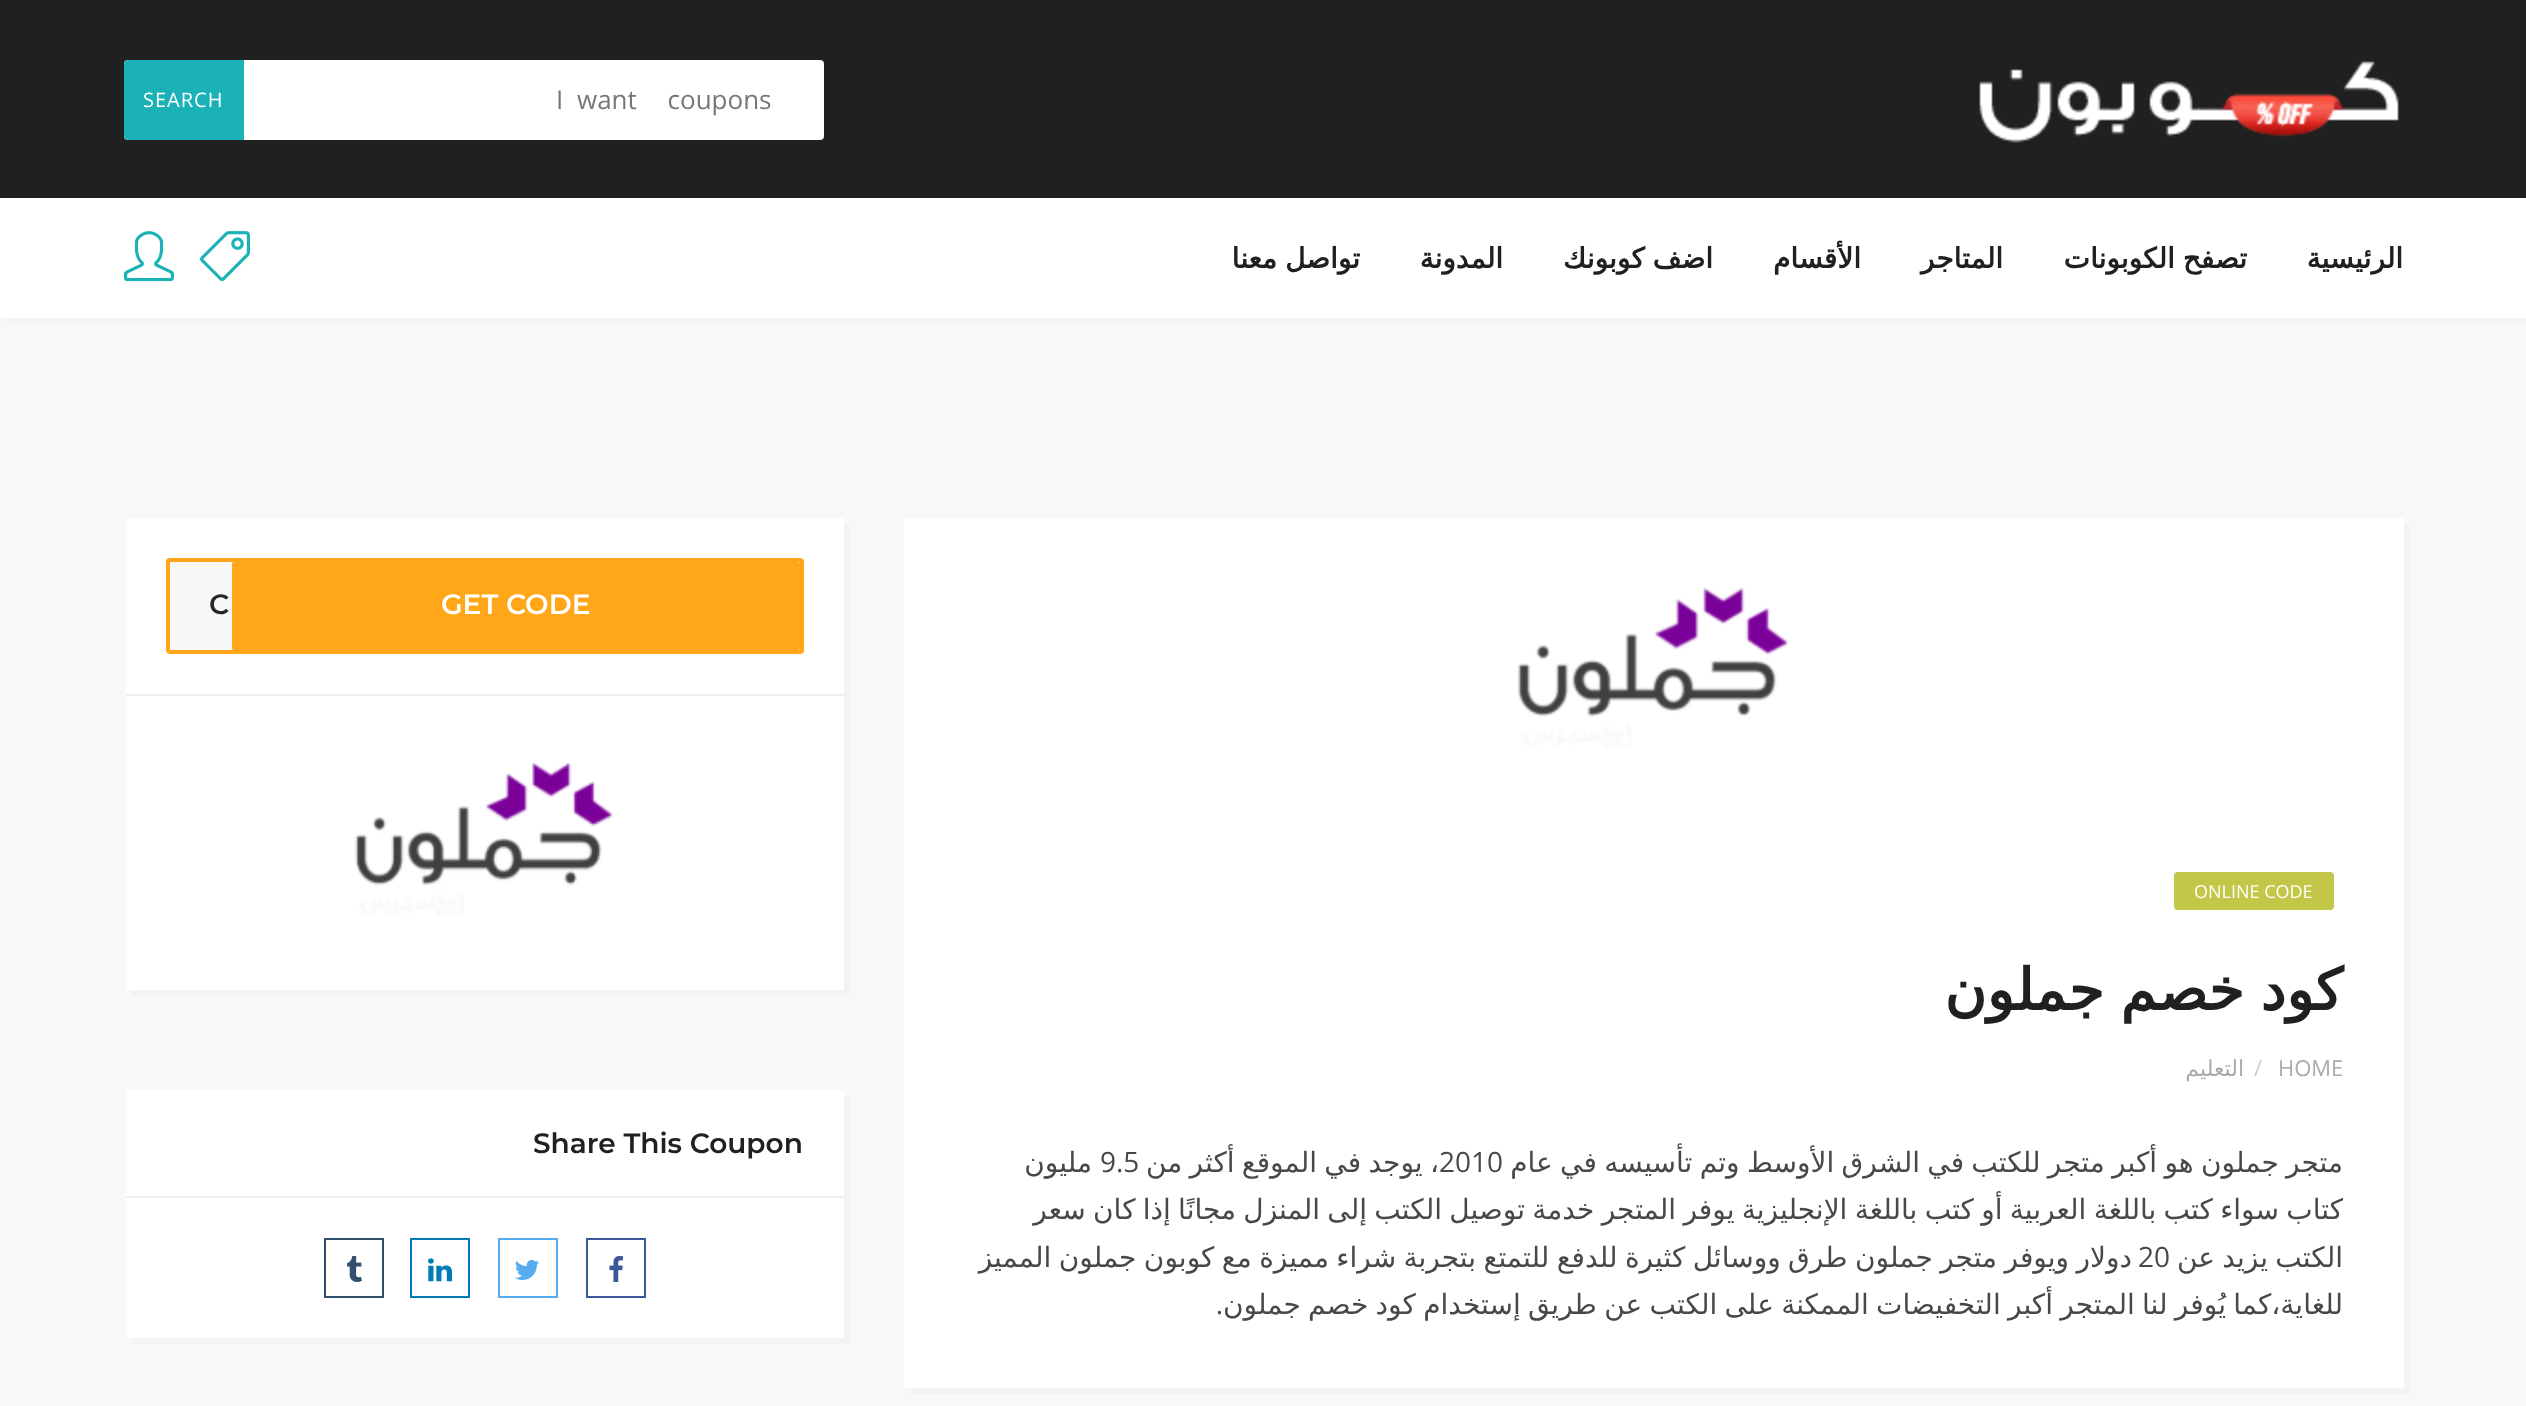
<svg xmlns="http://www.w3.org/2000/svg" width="2526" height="1406">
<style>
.a{font:26px Open Sans;fill:#777}
.b{font:20px Open Sans;letter-spacing:1px;fill:#fff}
.c{font:bold 28px DejaVu Sans;direction:rtl;fill:#202020}
.d{font:18px Open Sans;fill:#fff}
.e{font:bold 57.5px DejaVu Sans;direction:rtl;fill:#202020}
.f{font:22px Open Sans;fill:#aaa}
.g{font:22px Open Sans;fill:#ccc}
.h{font:22px DejaVu Sans;direction:rtl;fill:#aaa}
.i{font:28px DejaVu Sans;direction:rtl;fill:#484848}
.j{font:28px Open Sans;fill:#484848}
.k{font:28px Open Sans;direction:rtl;fill:#484848}
.l{font:100 28px Montserrat;fill:#fff}
.m{font:100 28px Montserrat;fill:#272727}
.n{font:100 28px Montserrat;fill:#202020}
</style>
<rect width="100%" height="100%" fill="#f8f8f8"/>
<path fill="#202020" d="M0 0h2526v198H0z"/>
<image href="1.png" x="1979" y="61" width="420" height="82"/>
<rect fill="#fff" x="124" y="60" width="700" height="80" rx="4"/>
<path fill="#1ab1b7" d="M128 60h116v80h-116c-2 0-4-2-4-4v-72c0-2 2-4 4-4z"/>
<path fill="#f3f3f3" d="M6 318v6h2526v-120h-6v114z"/>
<path fill="#fff" d="M0 198h2526v120H0z"/>
<image href="2.png" x="200" y="231" width="50" height="51"/>
<image href="3.png" x="124" y="231" width="50" height="51"/>
<path fill="#f3f3f3" d="M910 1388v6h1500v-870h-6v864z"/>
<path fill="#fff" d="M904 518h1500v870H904z"/>
<image href="4.png" x="1517" y="587" width="272" height="161"/>
<rect fill="#c2c748" x="2174" y="872" width="160" height="38" rx="4"/>
<path fill="#f3f3f3" d="M132 990v6h718v-472h-6v466z"/>
<path fill="#fff" d="M126 518h718v472H126z"/>
<path fill="#eee" d="M126 694h718v2H126z"/>
<rect fill="none" stroke="#ffa619" stroke-width="4" x="168" y="560" width="634" height="92" rx="2"/>
<path fill="#f7f7f7" d="M170 562h630v88H170z"/>
<rect fill="#ffa619" x="232" y="562" width="568" height="88" rx="2"/>
<image href="5.png" x="355" y="762" width="258" height="154"/>
<path fill="#f3f3f3" d="M132 1338v6h718v-248h-6v242z"/>
<path fill="#fff" d="M126 1090h718v248H126z"/>
<path fill="#eee" d="M126 1196h718v2H126z"/>
<path fill="none" stroke="#3b5998" stroke-width="2" d="M587 1239h58v58H587z"/>
<image href="6.png" x="609" y="1256" width="14" height="26"/>
<path fill="none" stroke="#55acee" stroke-width="2" d="M499 1239h58v58H499z"/>
<image href="7.png" x="514" y="1260" width="26" height="20"/>
<path fill="none" stroke="#007bb5" stroke-width="2" d="M411 1239h58v58H411z"/>
<image href="8.png" x="428" y="1258" width="24" height="24"/>
<path fill="none" stroke="#32506d" stroke-width="2" d="M325 1239h58v58H325z"/>
<image href="9.png" x="347" y="1256" width="15" height="26"/>
<text class="a" x="577" y="109" word-spacing="24">want coupons</text>
<text class="a" x="556" y="109">I</text>
<text class="b" x="143" y="107">SEARCH</text>
<text class="c" x="2403" y="268">الرئيسية</text>
<text class="c" x="2247" y="268" word-spacing="-1">تصفح الكوبونات</text>
<text class="c" x="2003" y="268">المتاجر</text>
<text class="c" x="1861" y="268">الأقسام</text>
<text class="c" x="1713" y="268" word-spacing="-1">اضف كوبونك</text>
<text class="c" x="1503" y="268">المدونة</text>
<text class="c" x="1360" y="268" word-spacing="-1">تواصل معنا</text>
<text class="d" x="2194" y="898">ONLINE CODE</text>
<text class="e" x="2343" y="1010" word-spacing="-2">كود خصم جملون</text>
<text class="f" x="2278" y="1076">HOME</text>
<text class="g" x="2254" y="1076">/</text>
<text class="h" x="2244" y="1076">التعليم</text>
<text class="i" x="2343" y="1172" word-spacing="-1.6">متجر جملون هو أكبر متجر للكتب في الشرق الأوسط وتم تأسيسه في عام</text>
<text class="i" x="1439" y="1172" word-spacing="-1.6">، يوجد في الموقع أكثر من</text>
<text class="j" x="1439" y="1172">2010</text>
<text class="j" x="1100" y="1172">9.5</text>
<text class="i" x="1092" y="1172">مليون</text>
<text class="i" x="2343" y="1219" word-spacing="-1.6">كتاب سواء كتب باللغة العربية أو كتب باللغة الإنجليزية يوفر المتجر خدمة توصيل الكتب إلى المنزل مجانًا إذا كان سعر</text>
<text class="i" x="2343" y="1267" word-spacing="-1.6">الكتب يزيد عن</text>
<text class="i" x="2132" y="1267" word-spacing="-1.5">دولار ويوفر متجر جملون طرق ووسائل كثيرة للدفع للتمتع بتجربة شراء مميزة مع كوبون جملون المميز</text>
<text class="j" x="2138" y="1267">20</text>
<text class="i" x="2343" y="1314" word-spacing="-1.6">للغاية،كما يُوفر لنا المتجر أكبر التخفيضات الممكنة على الكتب عن طريق إستخدام كود خصم جملون</text>
<text class="k" x="1223" y="1314">.</text>
<text class="l" x="441" y="614">GET CODE</text>
<text class="m" x="209" y="614">C</text>
<text class="n" x="533" y="1153">Share This Coupon</text>
</svg>
